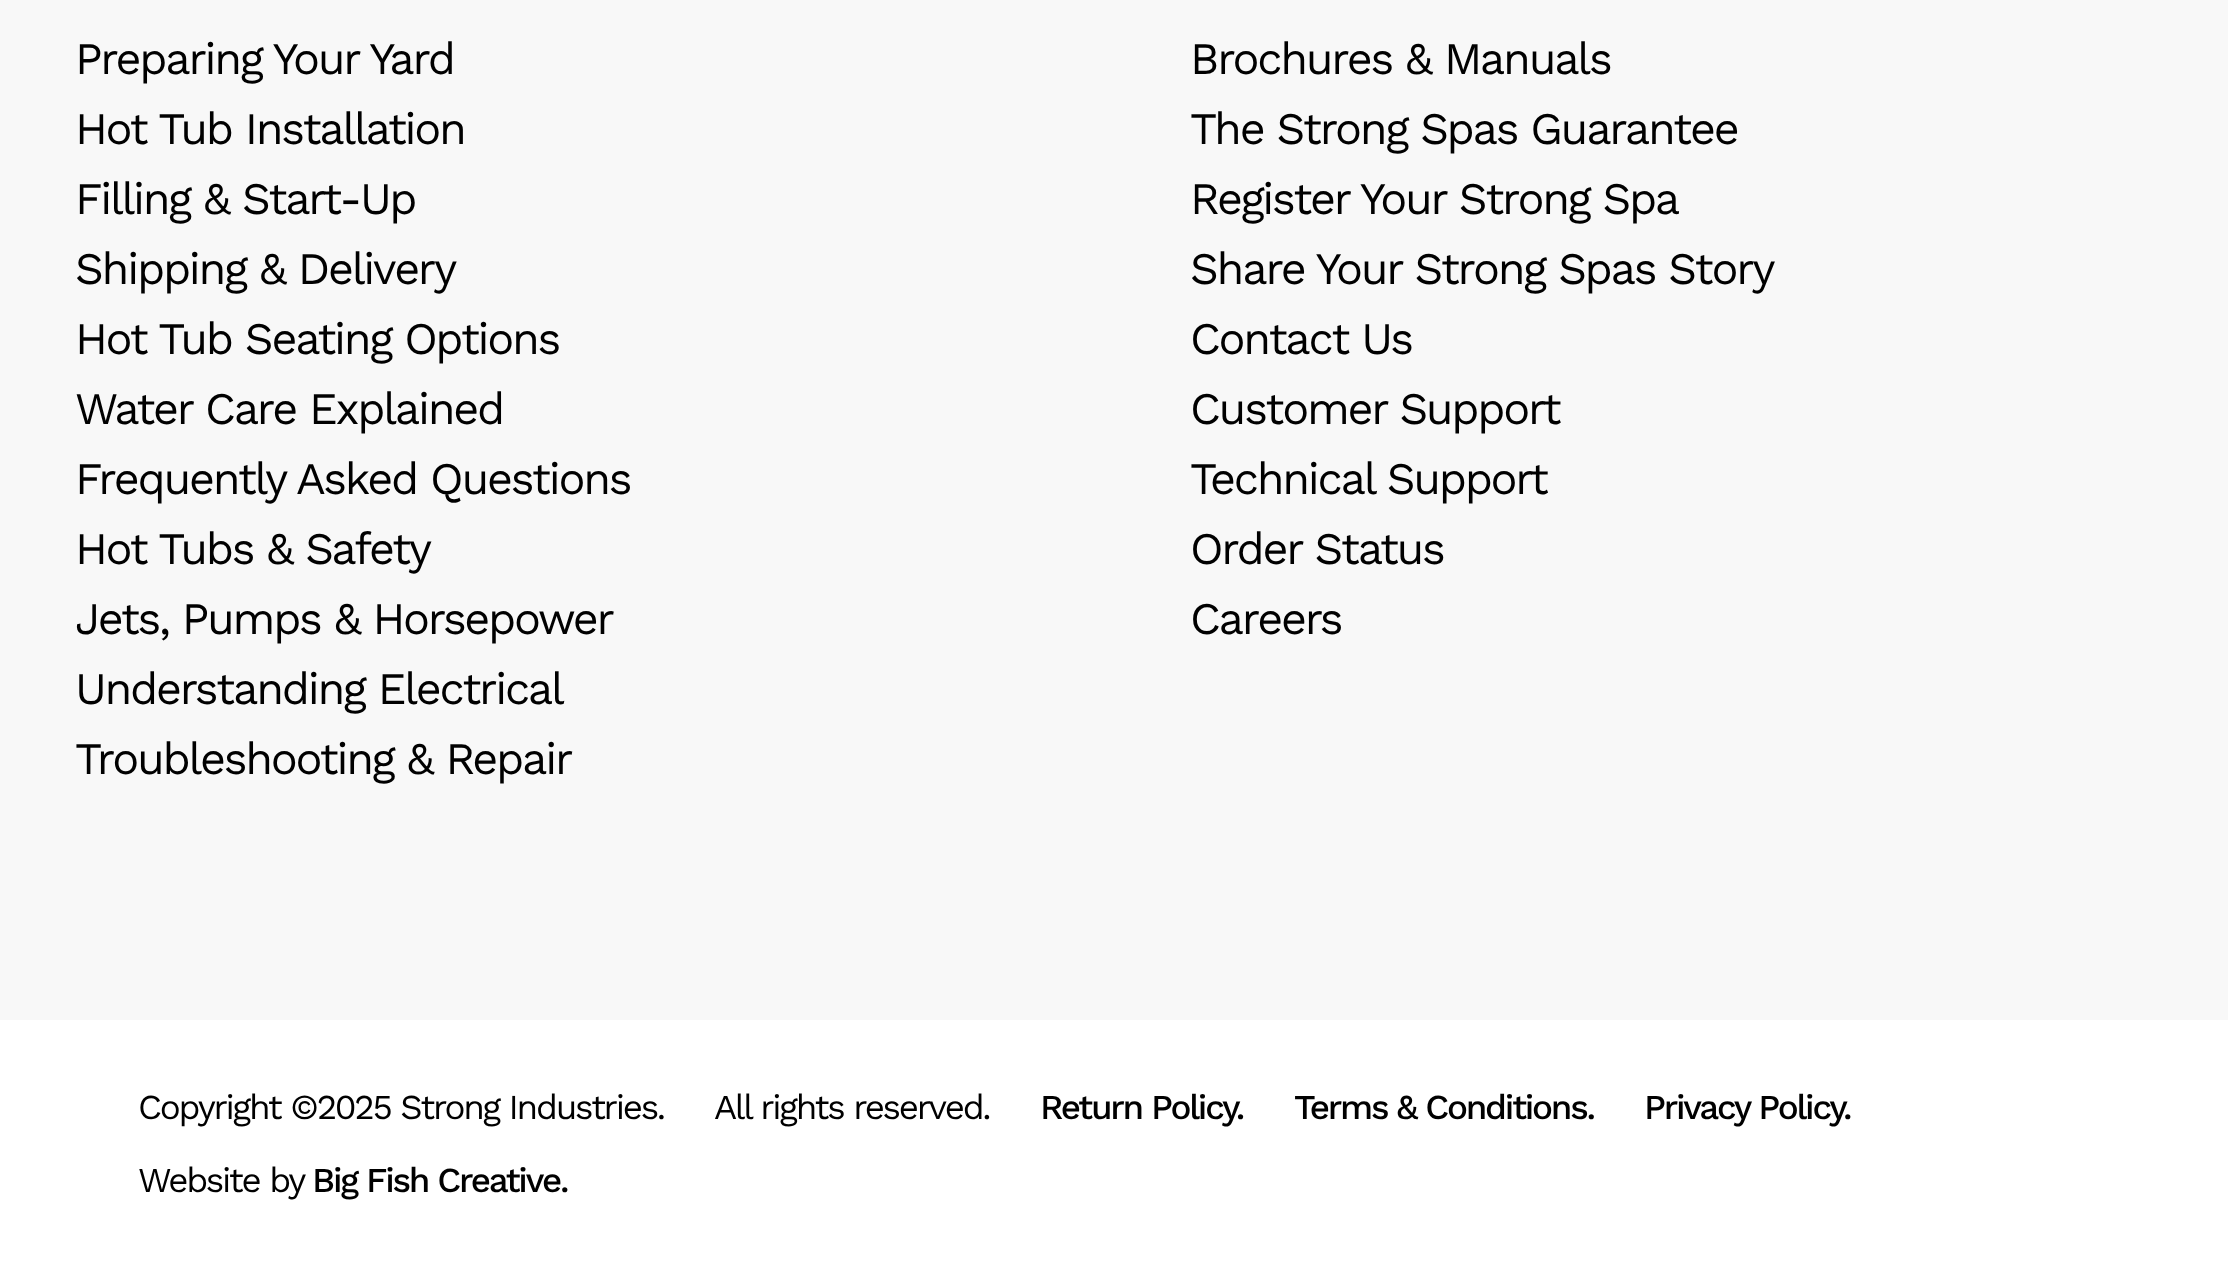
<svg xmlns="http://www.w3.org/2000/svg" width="2228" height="1263">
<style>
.a{font:45px Work Sans;letter-spacing:-2.25px;fill:#000}
.b{font:35px Work Sans;letter-spacing:-2.25px;fill:#000}
.c{font:500 35px Work Sans;letter-spacing:-2.25px;fill:#000}
</style>
<rect width="100%" height="100%" fill="#fff"/>
<path fill="#f8f8f8" d="M0 0h2228v1020H0z"/>
<text class="a" x="75" y="74">Preparing Your Yard</text>
<text class="a" x="75" y="144">Hot Tub Installation</text>
<text class="a" x="75" y="214">Filling &amp; Start-Up</text>
<text class="a" x="75" y="284">Shipping &amp; Delivery</text>
<text class="a" x="75" y="354">Hot Tub Seating Options</text>
<text class="a" x="75" y="424">Water Care Explained</text>
<text class="a" x="75" y="494">Frequently Asked Questions</text>
<text class="a" x="75" y="564">Hot Tubs &amp; Safety</text>
<text class="a" x="75" y="634">Jets, Pumps &amp; Horsepower</text>
<text class="a" x="75" y="704">Understanding Electrical</text>
<text class="a" x="75" y="774">Troubleshooting &amp; Repair</text>
<text class="a" x="1190" y="74">Brochures &amp; Manuals</text>
<text class="a" x="1190" y="144">The Strong Spas Guarantee</text>
<text class="a" x="1190" y="214">Register Your Strong Spa</text>
<text class="a" x="1190" y="284">Share Your Strong Spas Story</text>
<text class="a" x="1190" y="354">Contact Us</text>
<text class="a" x="1190" y="424">Customer Support</text>
<text class="a" x="1190" y="494">Technical Support</text>
<text class="a" x="1190" y="564">Order Status</text>
<text class="a" x="1190" y="634">Careers</text>
<text class="b" x="138" y="1119">Copyright ©2025 Strong Industries.</text>
<text class="b" x="714" y="1119">All rights reserved.</text>
<text class="c" x="1040" y="1119">Return Policy.</text>
<text class="c" x="1294" y="1119">Terms &amp; Conditions.</text>
<text class="c" x="1644" y="1119">Privacy Policy.</text>
<text class="b" x="138" y="1192">Website by</text>
<text class="c" x="312" y="1192">Big Fish Creative.</text>
</svg>
